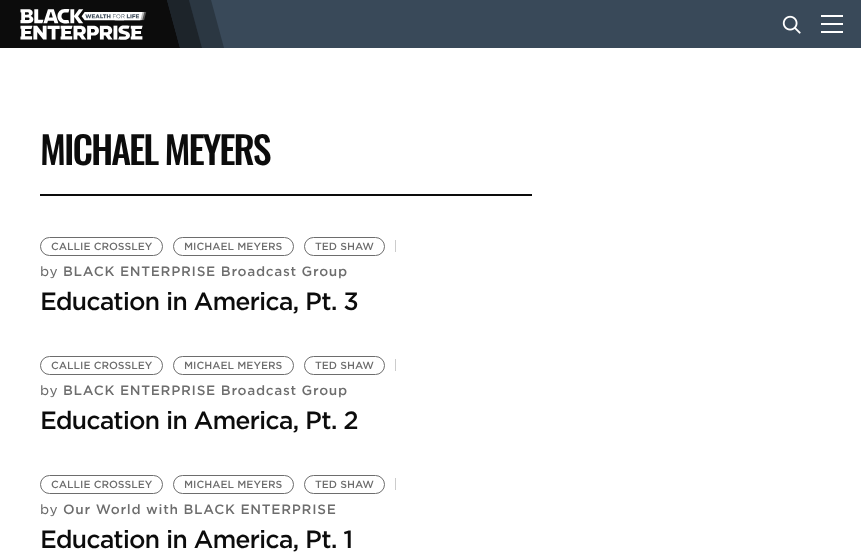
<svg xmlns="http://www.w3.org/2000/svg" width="861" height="554">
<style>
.a{font:500 38px Oswald;letter-spacing:-2px;fill:#0c0c0c}
.b{font:500 10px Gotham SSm;fill:#6d6d6d}
.c{font:13px Gotham SSm;letter-spacing:0.7px;fill:#6d6d6d}
.d{font:500 13px Gotham SSm;letter-spacing:0.7px;fill:#6d6d6d}
.e{font:500 24px Gotham SSm;letter-spacing:-1px;fill:#0c0c0c}
</style>
<rect width="100%" height="100%" fill="#fff"/>
<path fill="#394959" d="M167 0h694v48H167z"/>
<path fill="#0c0c0c" d="M0 0h67v48H0z"/>
<path fill="#0c0c0c" d="M54 0h113l13 48h-113z"/>
<path fill="#2b3742" d="M189 0h22l13 48h-22z"/>
<path fill="#0c0c0c99" d="M167 0h22l13 48h-22z"/>
<image href="1.png" x="20" y="9" width="127" height="31"/>
<image href="2.png" x="782" y="15" width="19" height="19"/>
<path fill="#fff" d="M821 23h22v2H821z"/>
<path fill="#fff" d="M821 15h22v2H821z"/>
<path fill="#fff" d="M821 31h22v2H821z"/>
<path fill="#0c0c0c" d="M40 194h492v2H40z"/>
<rect fill="none" stroke="#6d6d6d" x="40.5" y="237.5" width="122" height="18" rx="9"/>
<rect fill="none" stroke="#6d6d6d" x="173.5" y="237.5" width="120" height="18" rx="9"/>
<rect fill="none" stroke="#6d6d6d" x="304.5" y="237.5" width="80" height="18" rx="9"/>
<path fill="#ccc" d="M395 240h1v12H395z"/>
<rect fill="none" stroke="#6d6d6d" x="40.5" y="356.5" width="122" height="18" rx="9"/>
<rect fill="none" stroke="#6d6d6d" x="173.5" y="356.5" width="120" height="18" rx="9"/>
<rect fill="none" stroke="#6d6d6d" x="304.5" y="356.5" width="80" height="18" rx="9"/>
<path fill="#ccc" d="M395 359h1v12H395z"/>
<rect fill="none" stroke="#6d6d6d" x="40.5" y="475.5" width="122" height="18" rx="9"/>
<rect fill="none" stroke="#6d6d6d" x="173.5" y="475.5" width="120" height="18" rx="9"/>
<rect fill="none" stroke="#6d6d6d" x="304.5" y="475.5" width="80" height="18" rx="9"/>
<path fill="#ccc" d="M395 478h1v12H395z"/>
<text class="a" x="40" y="165">MICHAEL MEYERS</text>
<text class="b" x="51" y="250">CALLIE CROSSLEY</text>
<text class="b" x="184" y="250">MICHAEL MEYERS</text>
<text class="b" x="315" y="250">TED SHAW</text>
<text class="c" x="40" y="276">by</text>
<text class="d" x="63" y="276">BLACK ENTERPRISE Broadcast Group</text>
<text class="e" x="40" y="310">Education in America, Pt. 3</text>
<text class="b" x="51" y="369">CALLIE CROSSLEY</text>
<text class="b" x="184" y="369">MICHAEL MEYERS</text>
<text class="b" x="315" y="369">TED SHAW</text>
<text class="c" x="40" y="395">by</text>
<text class="d" x="63" y="395">BLACK ENTERPRISE Broadcast Group</text>
<text class="e" x="40" y="429">Education in America, Pt. 2</text>
<text class="b" x="51" y="488">CALLIE CROSSLEY</text>
<text class="b" x="184" y="488">MICHAEL MEYERS</text>
<text class="b" x="315" y="488">TED SHAW</text>
<text class="c" x="40" y="514">by</text>
<text class="d" x="63" y="514">Our World with BLACK ENTERPRISE</text>
<text class="e" x="40" y="548">Education in America, Pt. 1</text>
</svg>
